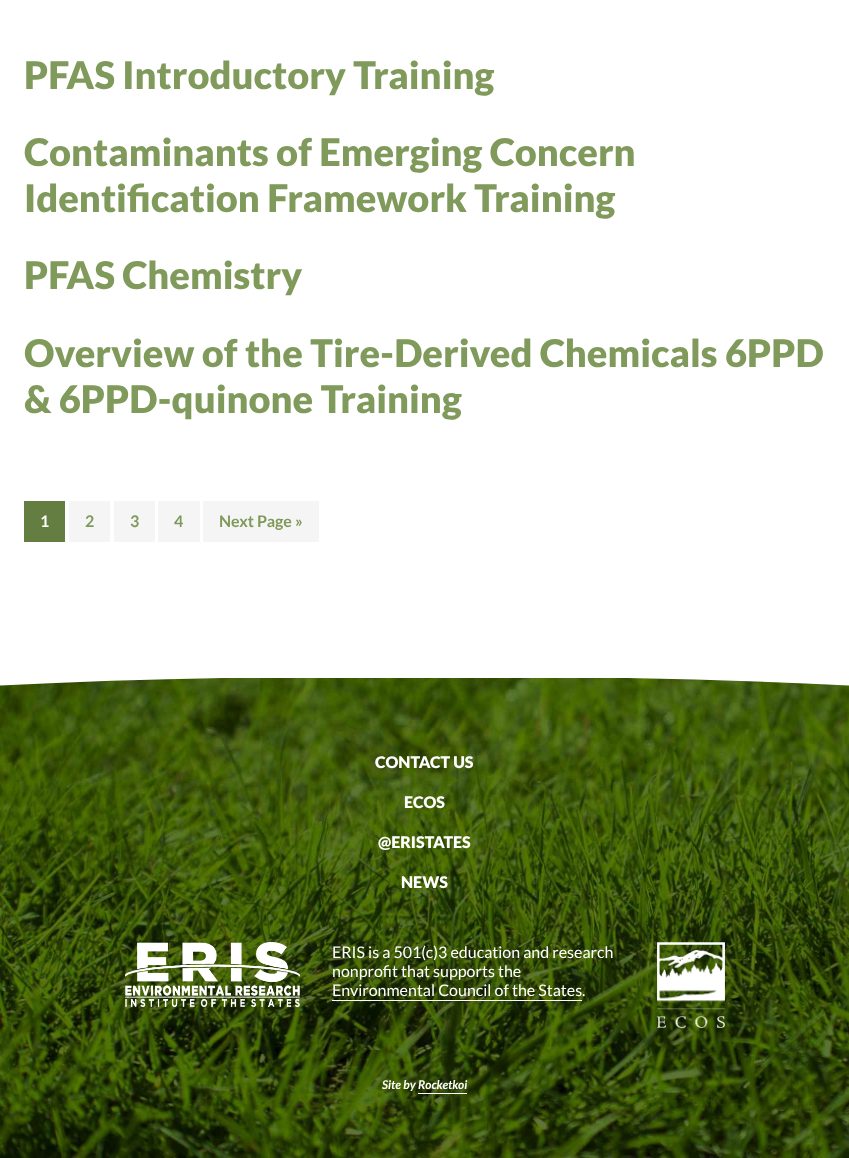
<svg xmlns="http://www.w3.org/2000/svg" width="849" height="1158">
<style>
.a{font:900 38px Lato;fill:#809a5b}
.b{font:bold 16px Lato;fill:#fff}
.c{font:bold 16px Lato;fill:#809a5b}
.d{font:900 16px Lato;fill:#fff}
.e{font:16px Lato;fill:#fff}
.f{font:italic bold 12px Lato;fill:#fff}
</style>
<rect width="100%" height="100%" fill="#fff"/>
<path fill="#647d41" d="M24 501h41v41H24z"/>
<path fill="#f5f5f5" d="M69 501h41v41H69z"/>
<path fill="#f5f5f5" d="M114 501h41v41H114z"/>
<path fill="#f5f5f5" d="M158 501h42v41H158z"/>
<path fill="#f5f5f5" d="M203 501h116v41H203z"/>
<image href="1.png" x="0" y="678" width="849" height="480"/>
<path fill="#fff" d="M-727 673v124h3c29-19 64-30 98-38c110-28 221-40 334-52c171-17 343-26 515-29h404c172 3 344 12 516 30c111 11 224 24 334 52c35 8 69 18 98 38h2v-125z"/>
<image href="2.png" x="125" y="942" width="175" height="65"/>
<path fill="#fff" d="M332 1000h250v1H332z"/>
<image href="3.png" x="657" y="942" width="68" height="86"/>
<path fill="#fff" d="M418 1093h49v1H418z"/>
<text class="a" x="24" y="89">PFAS Introductory Training</text>
<text class="a" x="24" y="166">Contaminants of Emerging Concern</text>
<text class="a" x="24" y="212">Identification Framework Training</text>
<text class="a" x="24" y="289">PFAS Chemistry</text>
<text class="a" x="24" y="367">Overview of the Tire-Derived Chemicals 6PPD</text>
<text class="a" x="24" y="413">&amp; 6PPD-quinone Training</text>
<text class="b" x="40" y="527">1</text>
<text class="c" x="85" y="527">2</text>
<text class="c" x="130" y="527">3</text>
<text class="c" x="174" y="527">4</text>
<text class="c" x="219" y="527">Next Page »</text>
<text class="d" x="375" y="768">CONTACT US</text>
<text class="d" x="404" y="808">ECOS</text>
<text class="d" x="378" y="848">@ERISTATES</text>
<text class="d" x="401" y="888">NEWS</text>
<text class="e" x="332" y="958">ERIS is a 501(c)3 education and research</text>
<text class="e" x="332" y="977">nonprofit that supports the</text>
<text class="e" x="332" y="996">Environmental Council of the States.</text>
<text class="f" x="382" y="1089">Site by Rocketkoi</text>
</svg>
